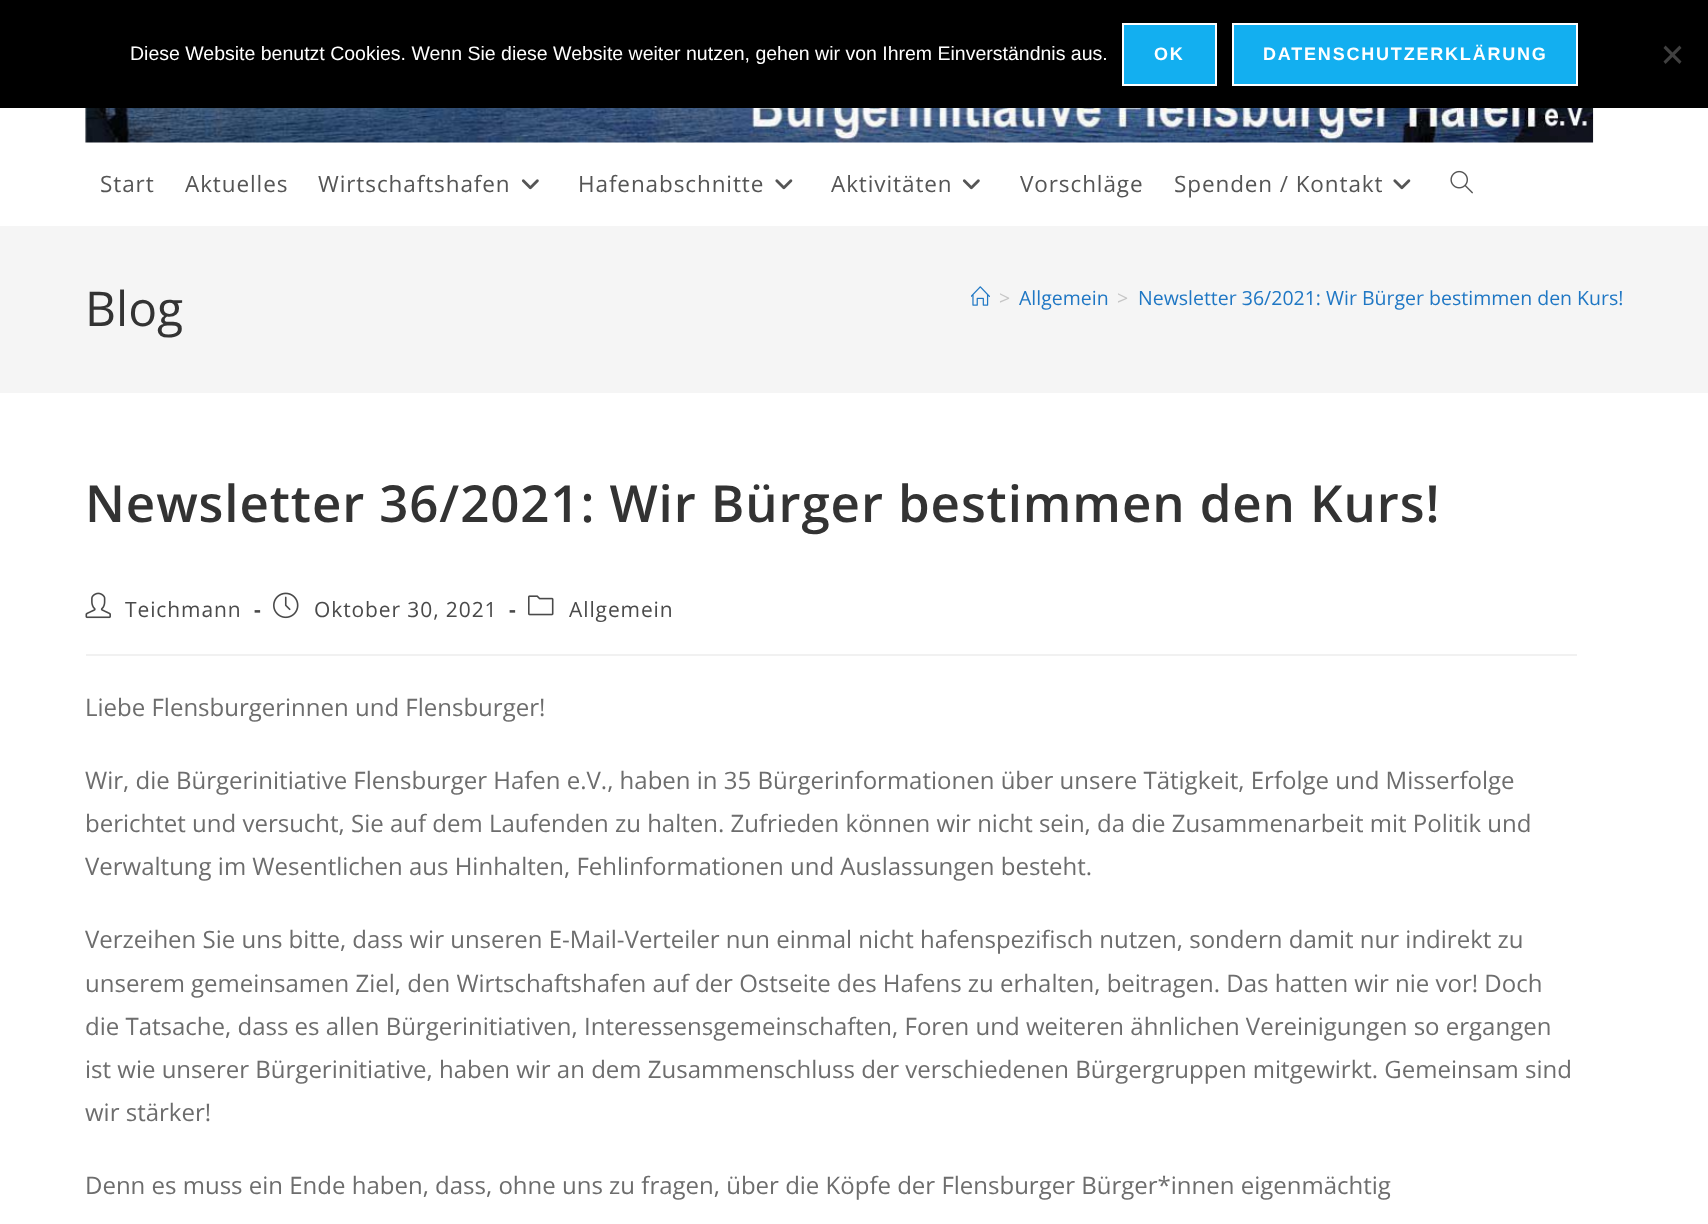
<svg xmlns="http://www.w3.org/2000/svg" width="1708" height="1224">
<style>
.a{font:19.5px Liberation Sans;fill:#fff}
.b{font:bold 18px Liberation Sans;letter-spacing:1.8px;fill:#fff}
.c{font:22.5px Open Sans;letter-spacing:0.9px;fill:#555}
.d{font:48px Open Sans;fill:#333}
.e{font:19.5px Open Sans;fill:#c6c6c6}
.f{font:19.5px Open Sans;fill:#1f77c4}
.g{font:600 51px Open Sans;letter-spacing:0.9px;fill:#333}
.h{font:21px Open Sans;letter-spacing:0.9px;fill:#4a4a4a}
.i{font:bold 21px Open Sans;letter-spacing:0.9px;fill:#4a4a4a}
.j{font:24px Open Sans;fill:#6d6d6d}
</style>
<rect width="100%" height="100%" fill="#fff"/>
<path fill="#000" d="M0 0h1708v108H0z"/>
<path fill="#13aff0" stroke="#fff" stroke-width="2" d="M1123 24h93v61H1123z"/>
<path fill="#13aff0" stroke="#fff" stroke-width="2" d="M1233 24h344v61H1233z"/>
<path fill="#404040" d="M1679.5 45.5l2 2.5l-16 16l-2-2.5z"/>
<path fill="#404040" d="M1663.5 48l2-2.5l16 16l-2 2.5z"/>
<image href="1.png" x="85" y="108" width="1509" height="35"/>
<image href="2.png" x="521" y="179" width="18" height="11"/>
<image href="3.png" x="775" y="179" width="18" height="11"/>
<image href="2.png" x="962" y="179" width="18" height="11"/>
<image href="3.png" x="1393" y="179" width="18" height="11"/>
<image href="4.png" x="1450" y="170" width="23" height="24"/>
<path fill="#f5f5f5" d="M0 226h1708v167H0z"/>
<image href="5.png" x="971" y="286" width="19" height="20"/>
<path fill="#f1f1f1" d="M86 654h1491v2H86z"/>
<image href="6.png" x="85" y="592" width="26" height="27"/>
<image href="7.png" x="273" y="592" width="26" height="27"/>
<image href="8.png" x="528" y="595" width="26" height="21"/>
<text class="a" x="130" y="60">Diese Website benutzt Cookies. Wenn Sie diese Website weiter nutzen, gehen wir von Ihrem Einverständnis aus.</text>
<text class="b" x="1154" y="60">OK</text>
<text class="b" x="1263" y="60">DATENSCHUTZERKLÄRUNG</text>
<text class="c" x="100" y="192">Start</text>
<text class="c" x="185" y="192">Aktuelles</text>
<text class="c" x="318" y="192">Wirtschaftshafen</text>
<text class="c" x="578" y="192">Hafenabschnitte</text>
<text class="c" x="831" y="192">Aktivitäten</text>
<text class="c" x="1020" y="192">Vorschläge</text>
<text class="c" x="1174" y="192">Spenden / Kontakt</text>
<text class="d" x="85" y="326">Blog</text>
<text class="e" x="999" y="305">&gt;</text>
<text class="f" x="1019" y="305">Allgemein</text>
<text class="e" x="1117" y="305">&gt;</text>
<text class="f" x="1138" y="305">Newsletter 36/2021: Wir Bürger bestimmen den Kurs!</text>
<text class="g" x="85" y="522">Newsletter 36/2021: Wir Bürger bestimmen den Kurs!</text>
<text class="h" x="125" y="617">Teichmann</text>
<text class="i" x="254" y="617">-</text>
<text class="h" x="314" y="617">Oktober 30, 2021</text>
<text class="i" x="509" y="617">-</text>
<text class="h" x="569" y="617">Allgemein</text>
<text class="j" x="85" y="716">Liebe Flensburgerinnen und Flensburger!</text>
<text class="j" x="85" y="789">Wir, die Bürgerinitiative Flensburger Hafen e.V., haben in 35 Bürgerinformationen über unsere Tätigkeit, Erfolge und Misserfolge</text>
<text class="j" x="85" y="832">berichtet und versucht, Sie auf dem Laufenden zu halten. Zufrieden können wir nicht sein, da die Zusammenarbeit mit Politik und</text>
<text class="j" x="85" y="875">Verwaltung im Wesentlichen aus Hinhalten, Fehlinformationen und Auslassungen besteht.</text>
<text class="j" x="85" y="948">Verzeihen Sie uns bitte, dass wir unseren E-Mail-Verteiler nun einmal nicht hafenspezifisch nutzen, sondern damit nur indirekt zu</text>
<text class="j" x="85" y="992">unserem gemeinsamen Ziel, den Wirtschaftshafen auf der Ostseite des Hafens zu erhalten, beitragen. Das hatten wir nie vor! Doch</text>
<text class="j" x="85" y="1035">die Tatsache, dass es allen Bürgerinitiativen, Interessensgemeinschaften, Foren und weiteren ähnlichen Vereinigungen so ergangen</text>
<text class="j" x="85" y="1078">ist wie unserer Bürgerinitiative, haben wir an dem Zusammenschluss der verschiedenen Bürgergruppen mitgewirkt. Gemeinsam sind</text>
<text class="j" x="85" y="1121">wir stärker!</text>
<text class="j" x="85" y="1194">Denn es muss ein Ende haben, dass, ohne uns zu fragen, über die Köpfe der Flensburger Bürger*innen eigenmächtig</text>
</svg>
